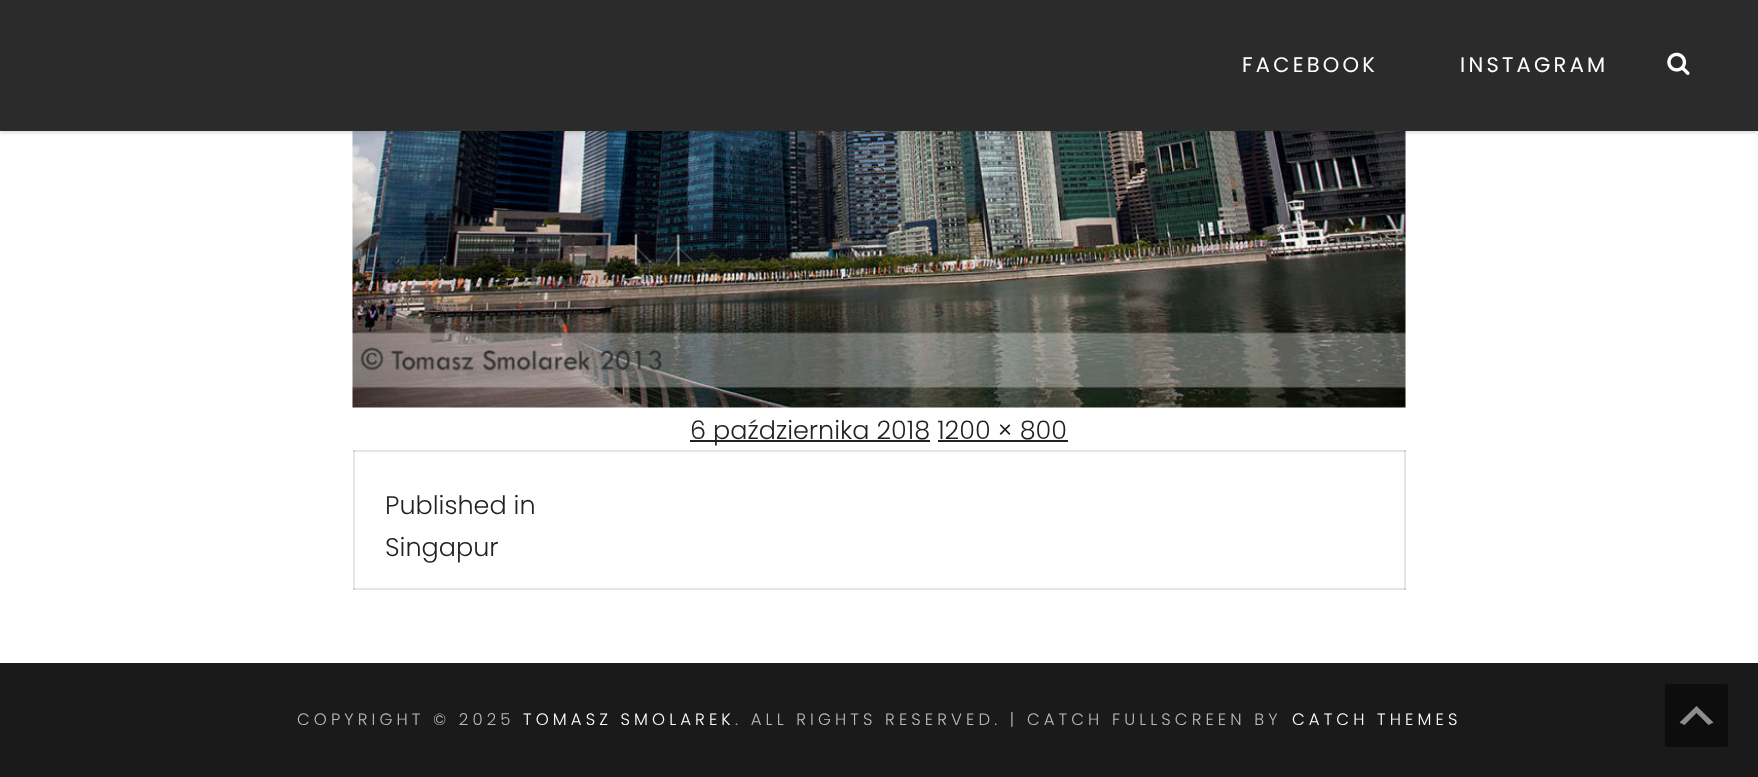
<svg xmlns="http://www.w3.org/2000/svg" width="1758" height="777">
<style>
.a{font:21px Poppins;letter-spacing:3.25px;fill:#fff}
.b{font:300 25.5px Poppins;fill:#222}
.c{font:300 16.5px Poppins;letter-spacing:4.1px;fill:#bababa}
.d{font:300 16.5px Poppins;letter-spacing:4.1px;fill:#fff}
</style>
<rect width="100%" height="100%" fill="#fff"/>
<path fill="#e6e6e6" d="M353 450h2v140H353z"/>
<path fill="#e6e6e6" d="M353 588h1053v2H353z"/>
<path fill="#cfcfcf" d="M353 588h2v2H353z"/>
<path fill="#e6e6e6" d="M1404 450h2v140H1404z"/>
<path fill="#cfcfcf" d="M1404 588h2v2H1404z"/>
<image href="2.png" x="352" y="131" width="1054" height="277"/>
<path fill="#00000033" filter="blur(2px)" d="M0 2h1758v130H0z"/>
<path fill="#2b2b2b" d="M0 0h1758v131H0z"/>
<image href="1.png" x="1667" y="52" width="23" height="23"/>
<path fill="#222" d="M690 440h240v2H690z"/>
<path fill="#222" d="M938 440h130v2H938z"/>
<path fill="#e6e6e6" d="M353 450h1053v2H353z"/>
<path fill="#cfcfcf" d="M353 450h2v2H353z"/>
<path fill="#cfcfcf" d="M1404 450h2v2H1404z"/>
<path fill="#1a1a1a" d="M0 663h1758v114H0z"/>
<rect fill="#0d0d0d" x="1665" y="684" width="63" height="63" rx="3"/>
<path fill="#8d8d8d" d="M1708.5 725l-12-12l-12 12l-5-2.5l17-16.5l17 16.5z"/>
<text class="a" x="1242" y="72">FACEBOOK</text>
<text class="a" x="1460" y="72">INSTAGRAM</text>
<text class="b" x="690" y="439">6 października 2018 1200 × 800</text>
<text class="b" x="385" y="514">Published in</text>
<text class="b" x="385" y="556">Singapur</text>
<text class="c" x="297" y="725">COPYRIGHT © 2025</text>
<text class="d" x="523" y="725">TOMASZ SMOLAREK</text>
<text class="c" x="735" y="725">. ALL RIGHTS RESERVED. | CATCH FULLSCREEN BY</text>
<text class="d" x="1292" y="725">CATCH THEMES</text>
</svg>
